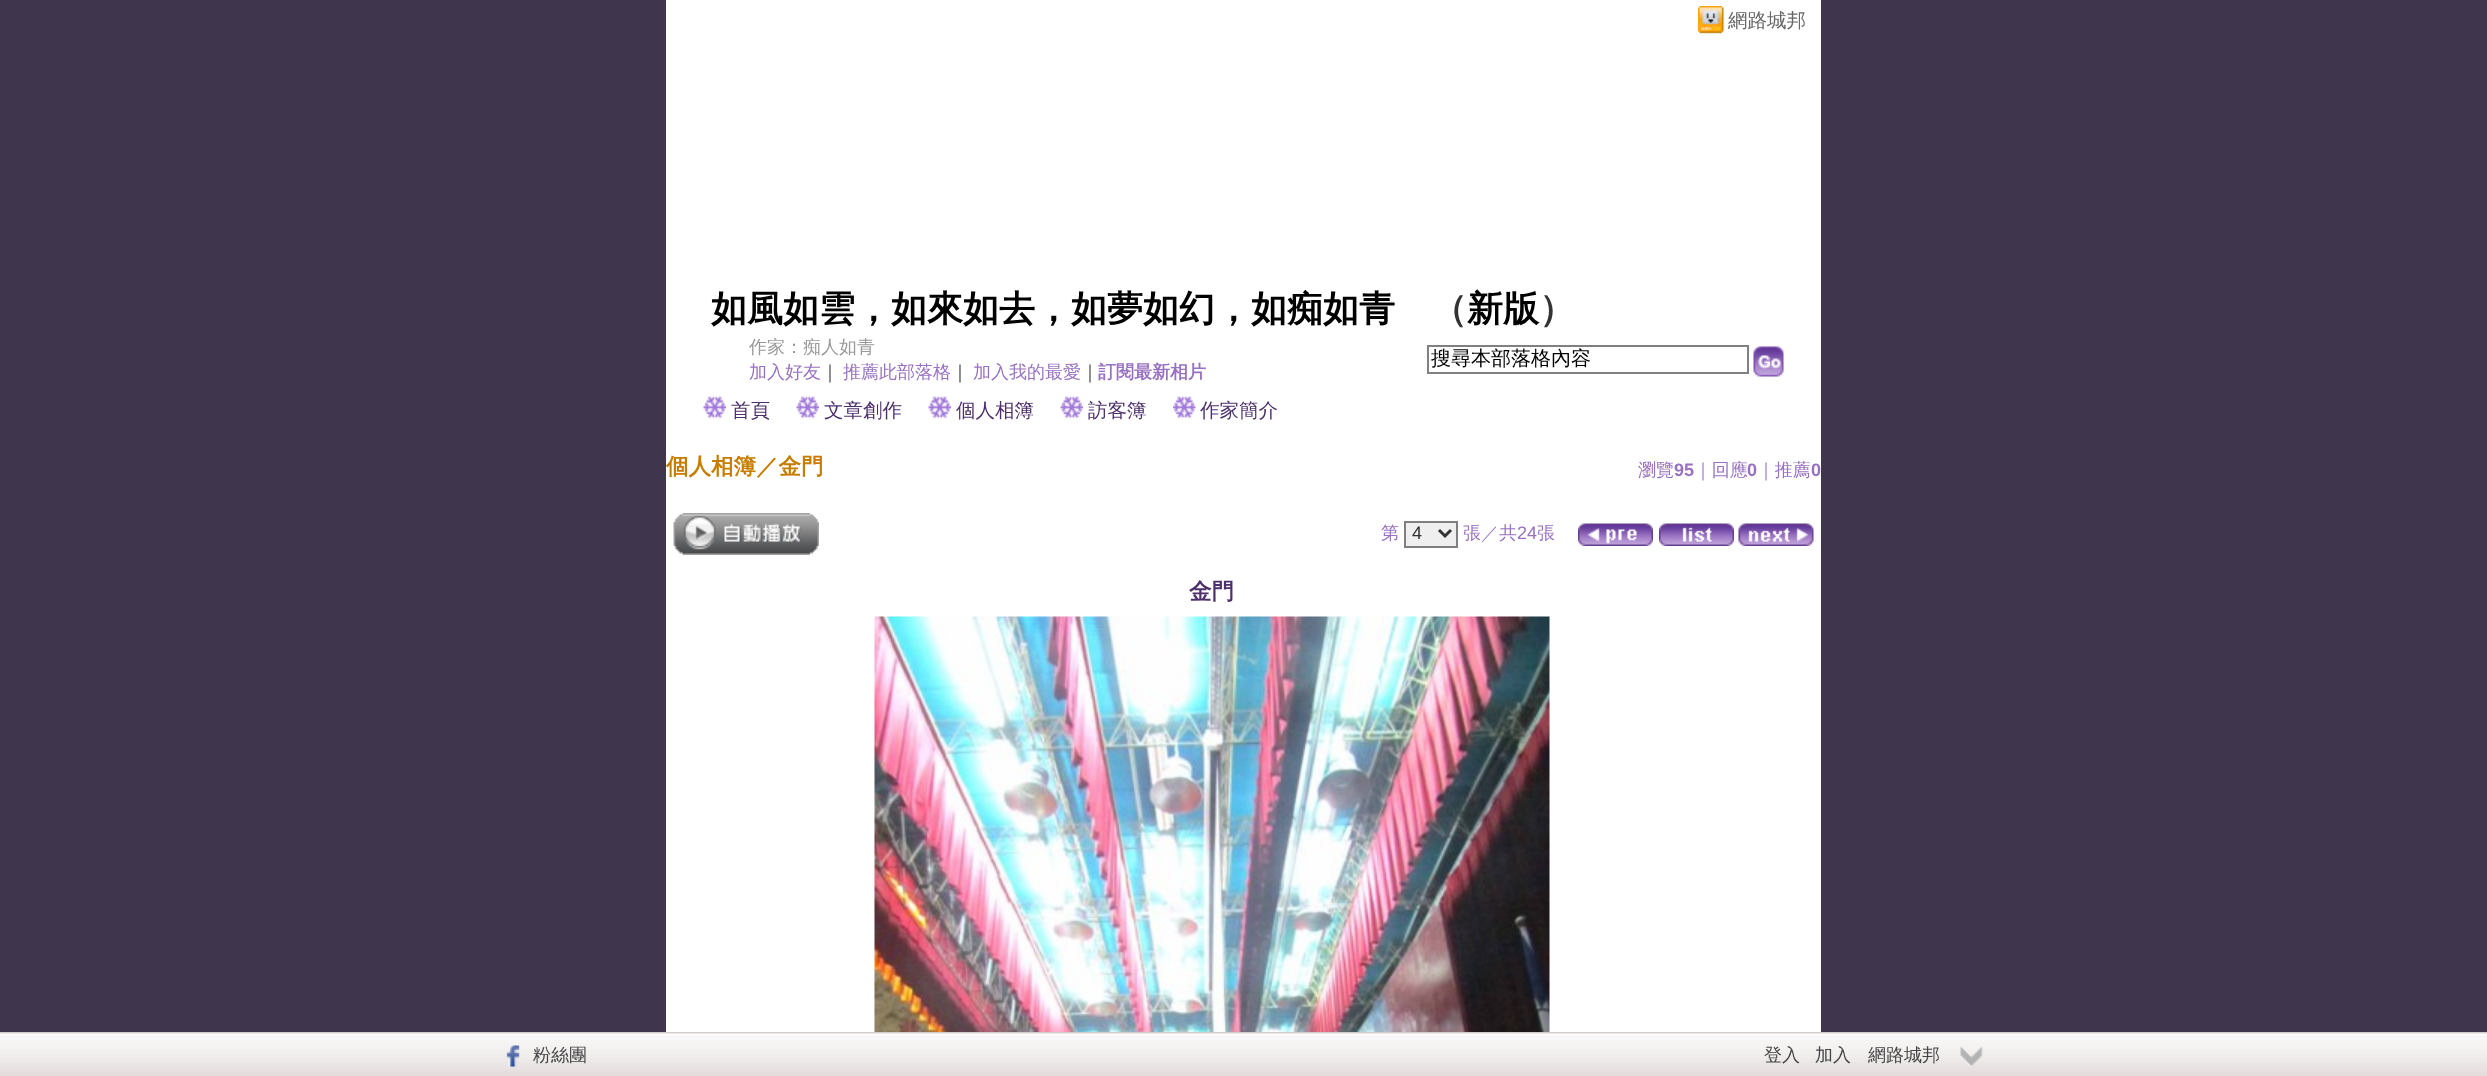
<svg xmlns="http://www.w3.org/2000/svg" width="2487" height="1076">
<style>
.a{font:500 19.5px WenQuanYi Zen Hei;fill:#666}
.b{font:bold 36px WenQuanYi Zen Hei;fill:#000}
.c{font:bold 36px WenQuanYi Zen Hei;fill:#333}
.d{font:500 18px WenQuanYi Zen Hei;fill:#999}
.e{font:500 20px WenQuanYi Zen Hei;fill:#000}
.f{font:500 18px WenQuanYi Zen Hei;fill:#9971c2}
.g{font:500 18px WenQuanYi Zen Hei;fill:#333}
.h{font:bold 18px WenQuanYi Zen Hei;fill:#9971c2}
.i{font:500 19.5px WenQuanYi Zen Hei;fill:#4d2f6c}
.j{font:bold 22.5px WenQuanYi Zen Hei;fill:#c77e00}
.k{font:bold 18px Liberation Sans;fill:#9971c2}
.l{font:18px Liberation Sans;fill:#333}
.m{font:18px Liberation Sans;fill:#9971c2}
.n{font:bold 22.5px WenQuanYi Zen Hei;fill:#4d2f6c}
.o{font:500 18px WenQuanYi Zen Hei;fill:#444}
</style>
<rect width="100%" height="100%" fill="#3f364d"/>
<path fill="#fff" d="M666 0h1155v1032H666z"/>
<image href="1.png" x="1698" y="6" width="26" height="28"/>
<path fill="none" stroke="#808080" stroke-width="2" d="M1428 346h320v27H1428z"/>
<image href="2.png" x="1753" y="346" width="31" height="31"/>
<image href="3.png" x="703" y="396" width="23" height="23"/>
<image href="4.png" x="796" y="396" width="23" height="23"/>
<image href="4.png" x="928" y="396" width="23" height="23"/>
<image href="3.png" x="1060" y="396" width="23" height="23"/>
<image href="5.png" x="1173" y="396" width="23" height="23"/>
<image href="6.png" x="673" y="513" width="146" height="42"/>
<path fill="#efefef" stroke="#808080" stroke-width="2" d="M1405 522h52v25H1405z"/>
<path fill="none" stroke="#333" stroke-width="3" d="M1439 530l6 6l6-6"/>
<image href="7.png" x="1578" y="523" width="75" height="23"/>
<image href="8.png" x="1659" y="523" width="75" height="23"/>
<image href="9.png" x="1738" y="523" width="76" height="23"/>
<image href="10.png" x="874" y="616" width="676" height="416"/>
<image href="11.png" x="0" y="1032" width="2487" height="44"/>
<image href="12.png" x="506" y="1045" width="14" height="22"/>
<image href="13.png" x="1960" y="1047" width="23" height="20"/>
<text class="a" x="1728" y="27">網路城邦</text>
<text class="b" x="711" y="321">如風如雲，如來如去，如夢如幻，如痴如青</text>
<text class="c" x="1431" y="321">（</text>
<text class="b" x="1467" y="321">新版</text>
<text class="c" x="1539" y="321">）</text>
<text class="d" x="749" y="353">作家：痴人如青</text>
<text class="e" x="1431" y="365">搜尋本部落格內容</text>
<text class="f" x="749" y="378">加入好友</text>
<text class="g" x="821" y="378">｜</text>
<text class="f" x="843" y="378">推薦此部落格</text>
<text class="g" x="951" y="378">｜</text>
<text class="f" x="973" y="378">加入我的最愛</text>
<text class="g" x="1081" y="378">｜</text>
<text class="h" x="1098" y="378">訂閱最新相片</text>
<text class="i" x="731" y="417">首頁</text>
<text class="i" x="824" y="417">文章創作</text>
<text class="i" x="956" y="417">個人相簿</text>
<text class="i" x="1088" y="417">訪客簿</text>
<text class="i" x="1200" y="417">作家簡介</text>
<text class="j" x="666" y="474">個人相簿／金門</text>
<text class="f" x="1638" y="476">瀏覽</text>
<text class="k" x="1674" y="476">95</text>
<text class="f" x="1694" y="476">｜回應</text>
<text class="k" x="1747" y="476">0</text>
<text class="f" x="1757" y="476">｜推薦</text>
<text class="k" x="1811" y="476">0</text>
<text class="f" x="1381" y="539">第</text>
<text class="l" x="1412" y="539">4</text>
<text class="f" x="1463" y="539">張／共</text>
<text class="m" x="1517" y="539">24</text>
<text class="f" x="1537" y="539">張</text>
<text class="n" x="1189" y="599">金門</text>
<text class="o" x="533" y="1061">粉絲團</text>
<text class="o" x="1764" y="1061">登入</text>
<text class="o" x="1815" y="1061">加入</text>
<text class="o" x="1868" y="1061">網路城邦</text>
</svg>
